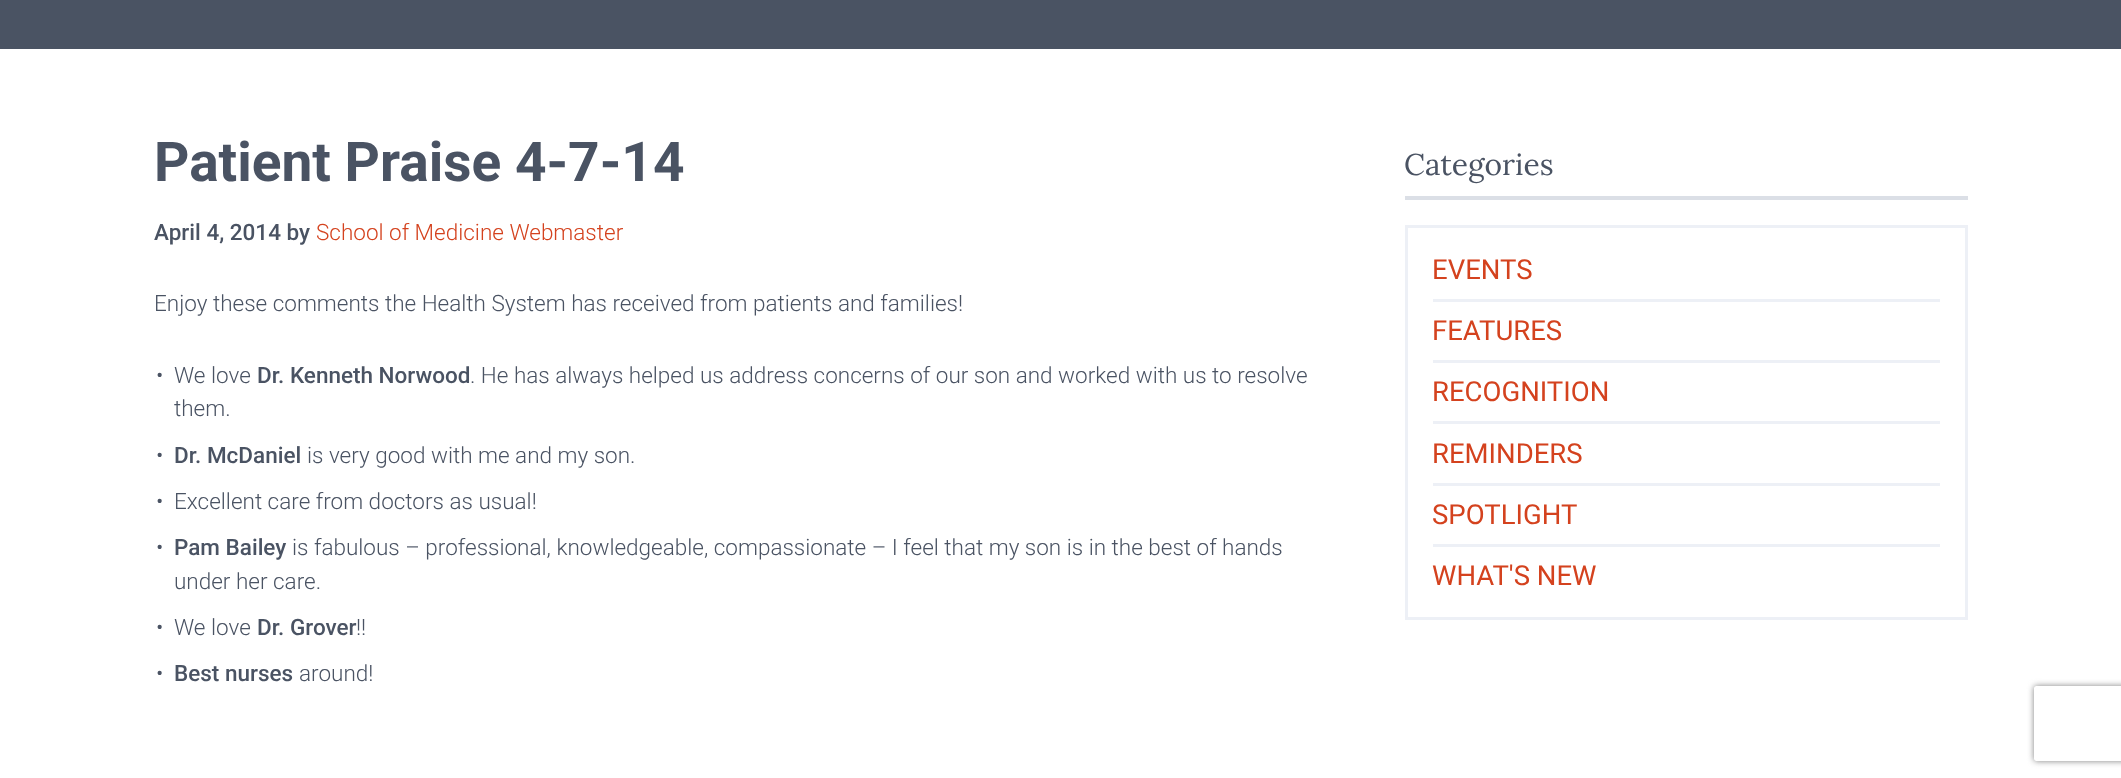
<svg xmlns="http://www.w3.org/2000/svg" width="2121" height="778">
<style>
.a{font:bold 55px Roboto;fill:#4a5363}
.b{font:500 22.5px Roboto;fill:#4a5363}
.c{font:300 22.5px Roboto;fill:#d4421e}
.d{font:300 22.5px Roboto;fill:#4a5363}
.e{font:30px Lora;fill:#4a5363}
.f{font:27.5px Roboto;fill:#d4421e}
</style>
<defs>
<clipPath id="clip1"><path d="M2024 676h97v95h-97zm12.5 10h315c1.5 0 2.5 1 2.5 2.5v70c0 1.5-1 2.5-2.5 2.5h-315c-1.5 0-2.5-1-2.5-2.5v-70c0-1.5 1-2.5 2.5-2.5z" clip-rule="evenodd"/></clipPath>
</defs>
<rect width="100%" height="100%" fill="#fff"/>
<path fill="#4a5363" d="M0 0h2121v49H0z"/>
<path fill="#dbdfe6" d="M1405 196h563v4H1405z"/>
<path fill="none" stroke="#edf0f6" stroke-width="3" d="M1406.5 226.5h560v392H1406.5z"/>
<path fill="#edf0f6" d="M1433 299h507v3H1433z"/>
<path fill="#edf0f6" d="M1433 360h507v3H1433z"/>
<path fill="#edf0f6" d="M1433 421h507v3H1433z"/>
<path fill="#edf0f6" d="M1433 483h507v3H1433z"/>
<path fill="#edf0f6" d="M1433 544h507v3H1433z"/>
<g clip-path="url(#clip1)">
<rect fill="#808080" filter="blur(3px)" x="2034" y="686" width="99" height="75" rx="2.5"/>
</g>
<text class="a" x="154" y="181">Patient Praise 4-7-14</text>
<text class="b" x="154" y="240">April 4, 2014 by</text>
<text class="c" x="316" y="240">School of Medicine Webmaster</text>
<text class="d" x="154" y="311">Enjoy these comments the Health System has received from patients and families!</text>
<text class="d" x="156" y="383">•</text>
<text class="d" x="174" y="383">We love</text>
<text class="b" x="257" y="383">Dr. Kenneth Norwood</text>
<text class="d" x="470" y="383">. He has always helped us address concerns of our son and worked with us to resolve</text>
<text class="d" x="174" y="416">them.</text>
<text class="d" x="156" y="463">•</text>
<text class="b" x="174" y="463">Dr. McDaniel</text>
<text class="d" x="307" y="463">is very good with me and my son.</text>
<text class="d" x="156" y="509">•</text>
<text class="d" x="174" y="509">Excellent care from doctors as usual!</text>
<text class="d" x="156" y="555">•</text>
<text class="b" x="174" y="555">Pam Bailey</text>
<text class="d" x="292" y="555">is fabulous – professional, knowledgeable, compassionate – I feel that my son is in the best of hands</text>
<text class="d" x="174" y="589">under her care.</text>
<text class="d" x="156" y="635">•</text>
<text class="d" x="174" y="635">We love</text>
<text class="b" x="257" y="635">Dr. Grover</text>
<text class="d" x="356" y="635">!!</text>
<text class="d" x="156" y="681">•</text>
<text class="b" x="174" y="681">Best nurses</text>
<text class="d" x="299" y="681">around!</text>
<text class="e" x="1404" y="175">Categories</text>
<text class="f" x="1432" y="279">EVENTS</text>
<text class="f" x="1432" y="340">FEATURES</text>
<text class="f" x="1432" y="401">RECOGNITION</text>
<text class="f" x="1432" y="463">REMINDERS</text>
<text class="f" x="1432" y="524">SPOTLIGHT</text>
<text class="f" x="1432" y="585">WHAT'S NEW</text>
</svg>
